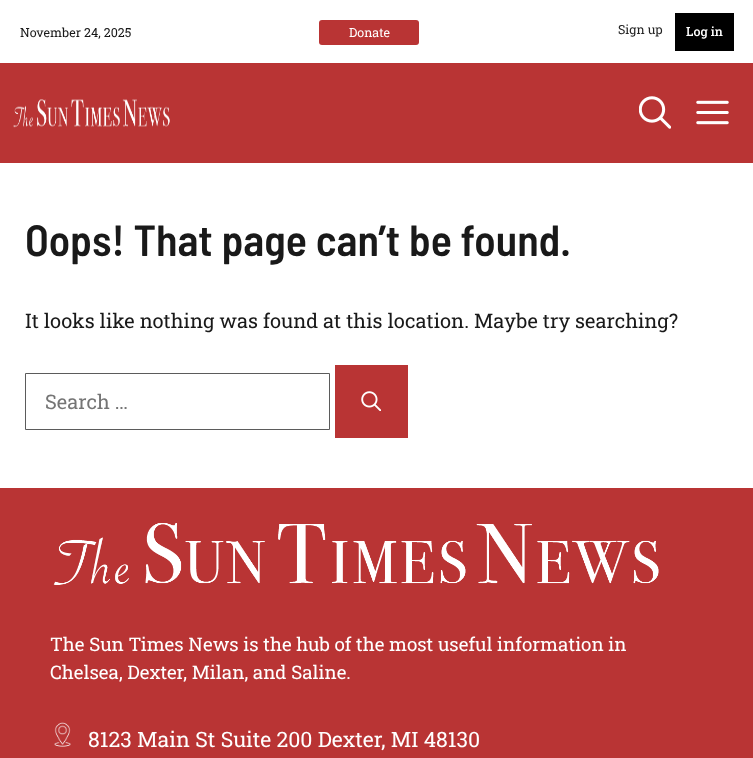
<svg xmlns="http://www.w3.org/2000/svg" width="753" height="758">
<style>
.a{font:12.5px Roboto Slab;fill:#191919}
.b{font:12.5px Roboto Slab;fill:#fff}
.c{font:12.5px Roboto Slab;fill:#222}
.d{font:500 12.5px Roboto Slab;fill:#fff}
.e{font:600 43.75px Barlow Semi Condensed;fill:#191919}
.f{font:20px Roboto Slab;fill:#191919}
.g{font:20px Roboto Slab;fill:#757575}
.h{font:18.75px Roboto Slab;fill:#fff}
.i{font:21.25px Roboto Slab;fill:#fff}
</style>
<rect width="100%" height="100%" fill="#fff"/>
<rect fill="#b93434" x="319" y="20" width="100" height="25" rx="3"/>
<path fill="#000" d="M675 13h59v38H675z"/>
<path fill="#b93434" d="M0 63h753v100H0z"/>
<image href="1.png" x="13" y="99" width="157" height="29"/>
<image href="2.png" x="639" y="96" width="32" height="33"/>
<image href="3.png" x="696" y="100" width="33" height="25"/>
<path fill="none" stroke="#5b5b5b" d="M25.5 373.5h304v56H25.5z"/>
<path fill="#b93434" d="M335 365h73v73H335z"/>
<image href="4.png" x="361" y="391" width="20" height="20"/>
<path fill="#b93434" d="M0 488h753v270H0z"/>
<image href="5.png" x="53" y="523" width="606" height="62"/>
<image href="6.png" x="54" y="722" width="17" height="25"/>
<text class="a" x="20" y="37">November 24, 2025</text>
<text class="b" x="349" y="37">Donate</text>
<text class="c" x="618" y="34">Sign up</text>
<text class="d" x="686" y="36">Log in</text>
<text class="e" x="25" y="256">Oops! That page can’t be found.</text>
<text class="f" x="25" y="328">It looks like nothing was found at this location. Maybe try searching?</text>
<text class="g" x="45" y="409">Search …</text>
<text class="h" x="50" y="651">The Sun Times News is the hub of the most useful information in</text>
<text class="h" x="50" y="679">Chelsea, Dexter, Milan, and Saline.</text>
<text class="i" x="88" y="747">8123 Main St Suite 200 Dexter, MI 48130</text>
</svg>
